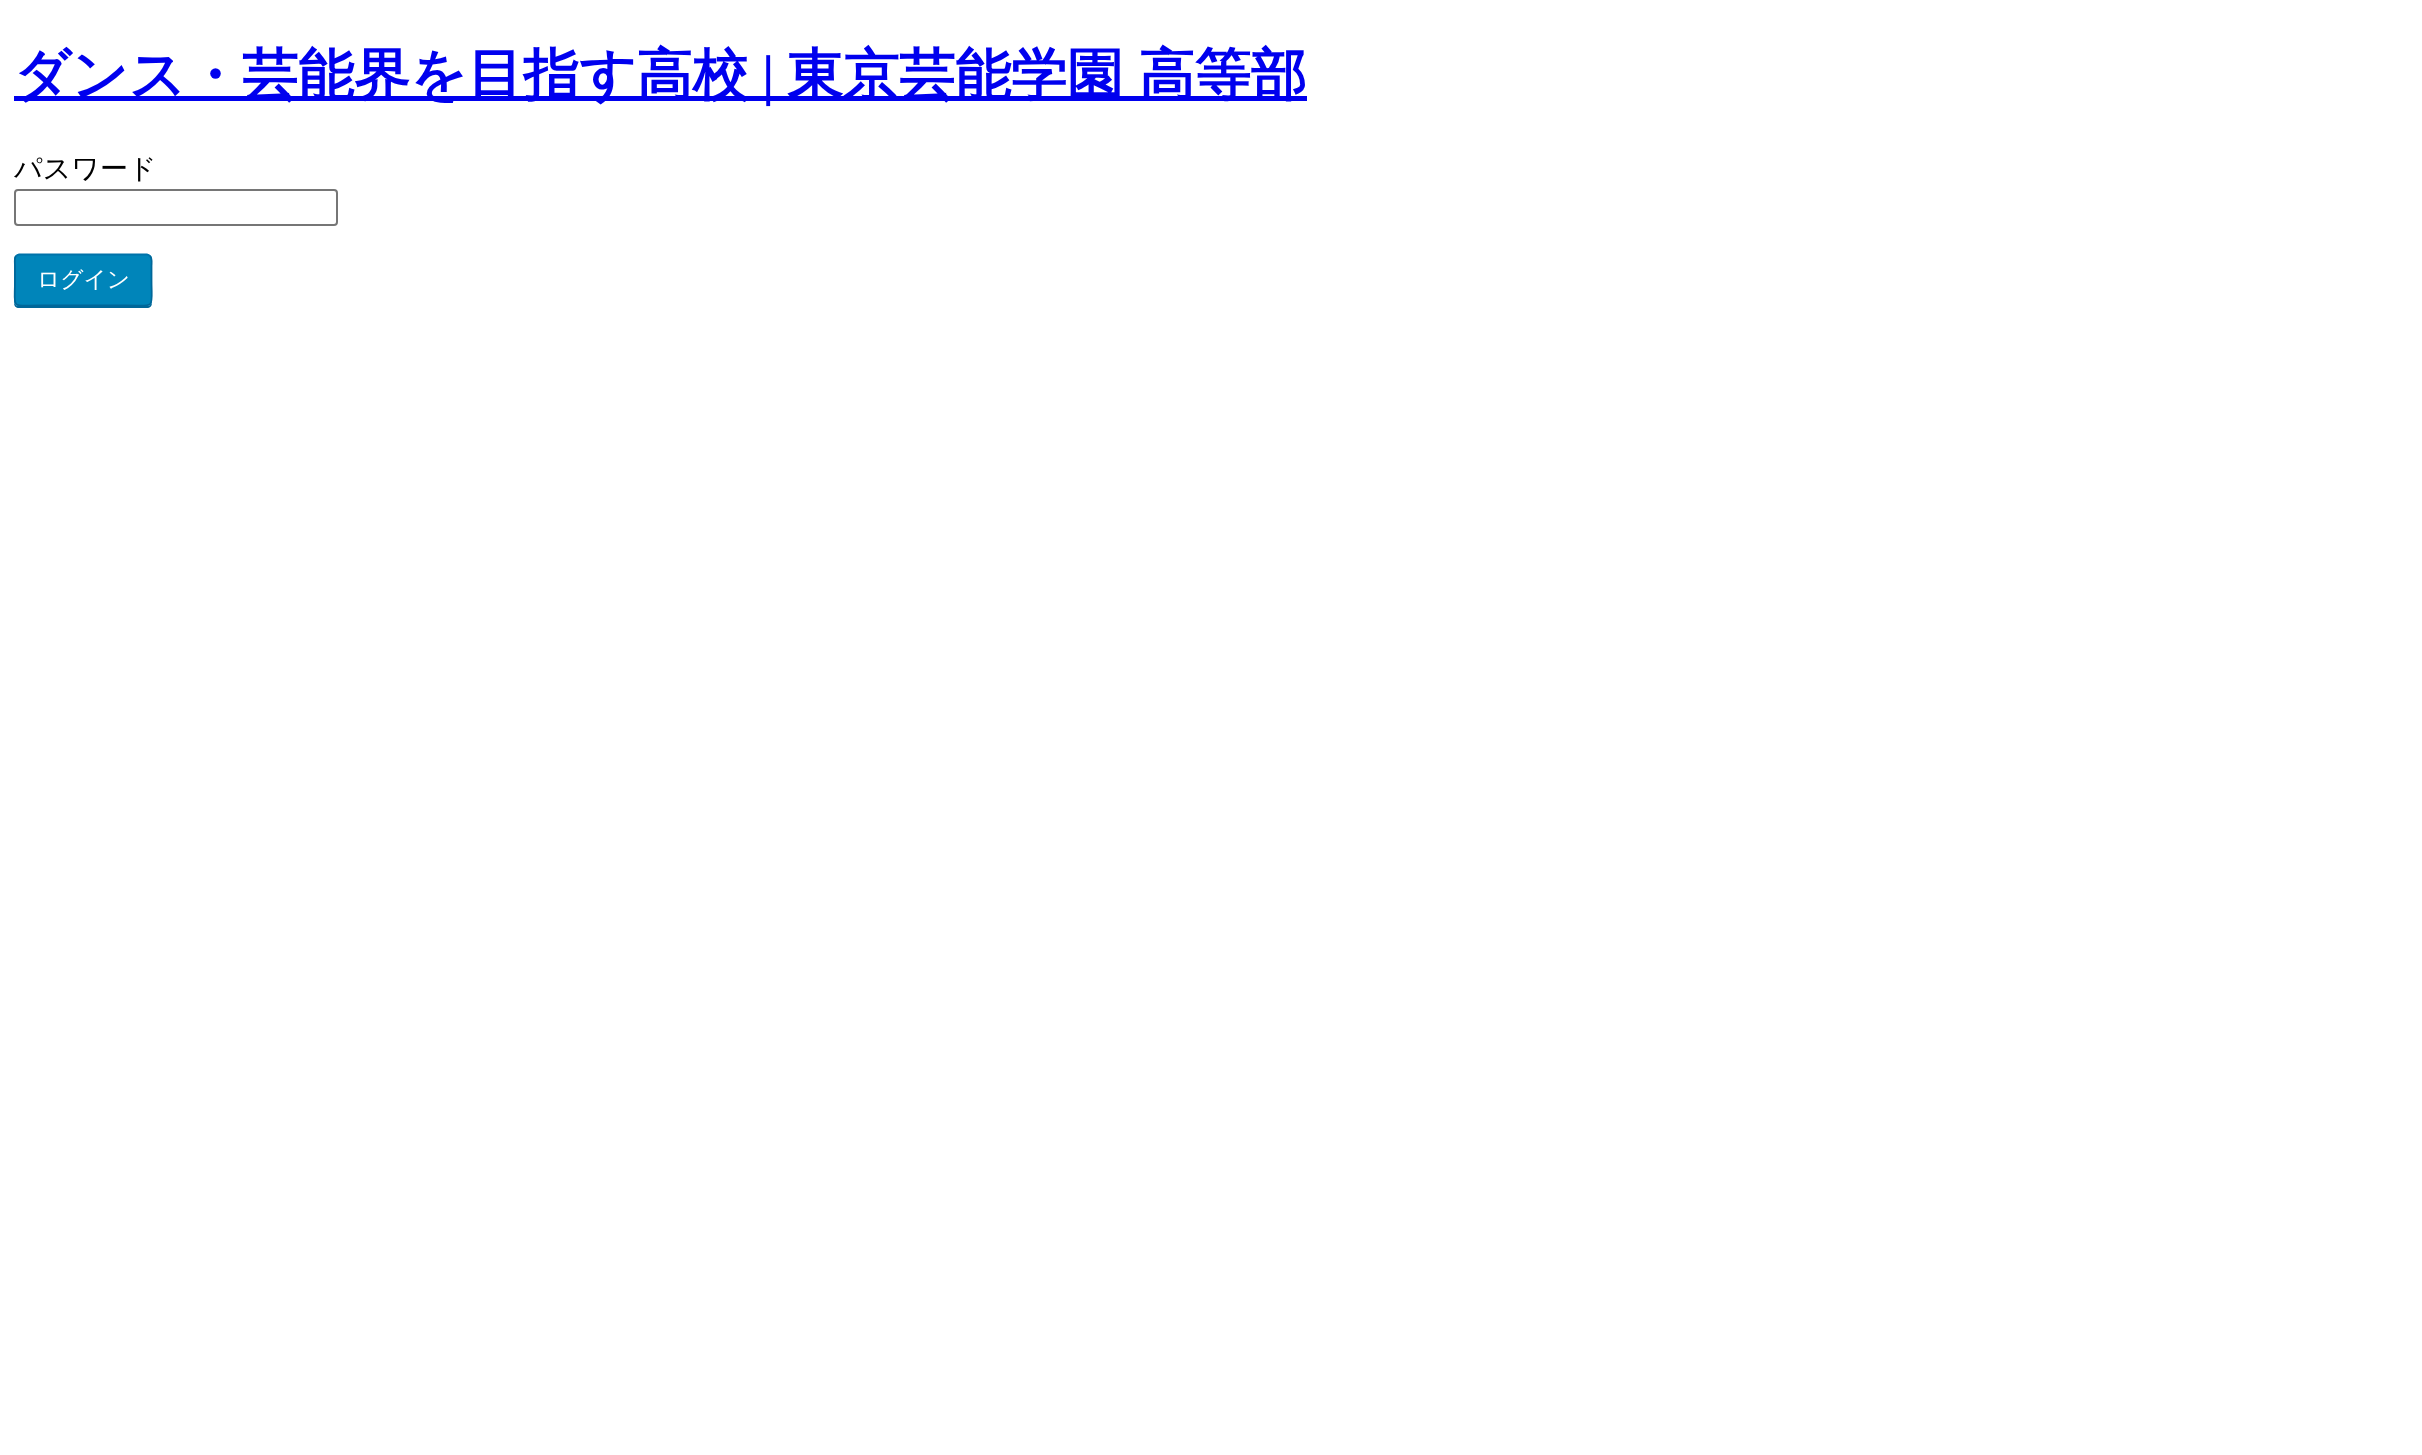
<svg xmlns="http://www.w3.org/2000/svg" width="2422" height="1455">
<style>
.a{font:bold 56px WenQuanYi Zen Hei;fill:#00e}
.b{font:bold 56px Liberation Serif;fill:#00e}
.c{font:500 28px WenQuanYi Zen Hei;fill:#000}
.d{font:500 22.75px WenQuanYi Zen Hei;fill:#fff}
</style>
<rect width="100%" height="100%" fill="#fff"/>
<path fill="#00e" d="M14 96h1293v5H14z"/>
<rect fill="none" stroke="#767676" stroke-width="2" x="15" y="190" width="322" height="35" rx="3"/>
<path fill="#006799" d="M14 301v2c0 3 2 5 5 5h128c3 0 5-2 5-5c-1 2-3 3-5 3h-128c-3 0-5-2-5-5z"/>
<rect fill="#0085ba" x="14" y="254" width="138" height="52" rx="5"/>
<path fill="none" stroke="#0073aa" stroke-width="1.8" d="M16 256l3-1.5h106.5h21.5l3 1.5"/>
<path fill="none" stroke="#006799" stroke-width="1.8" d="M150 256c2.5 2.5 1.5 7.5 1.5 10v14c0 30.5 5 25.5-26 25.5h-85c-31 0-25.5 5-25.5-25.5v-14c0-2.5-1-7.5 1-10"/>
<text class="a" x="14" y="94">ダンス・芸能界を目指す高校</text>
<text class="b" x="762" y="94">|</text>
<text class="a" x="787" y="94" word-spacing="-1">東京芸能学園 高等部</text>
<text class="c" x="14" y="178">パスワード</text>
<text class="d" x="37" y="287">ログイン</text>
</svg>
